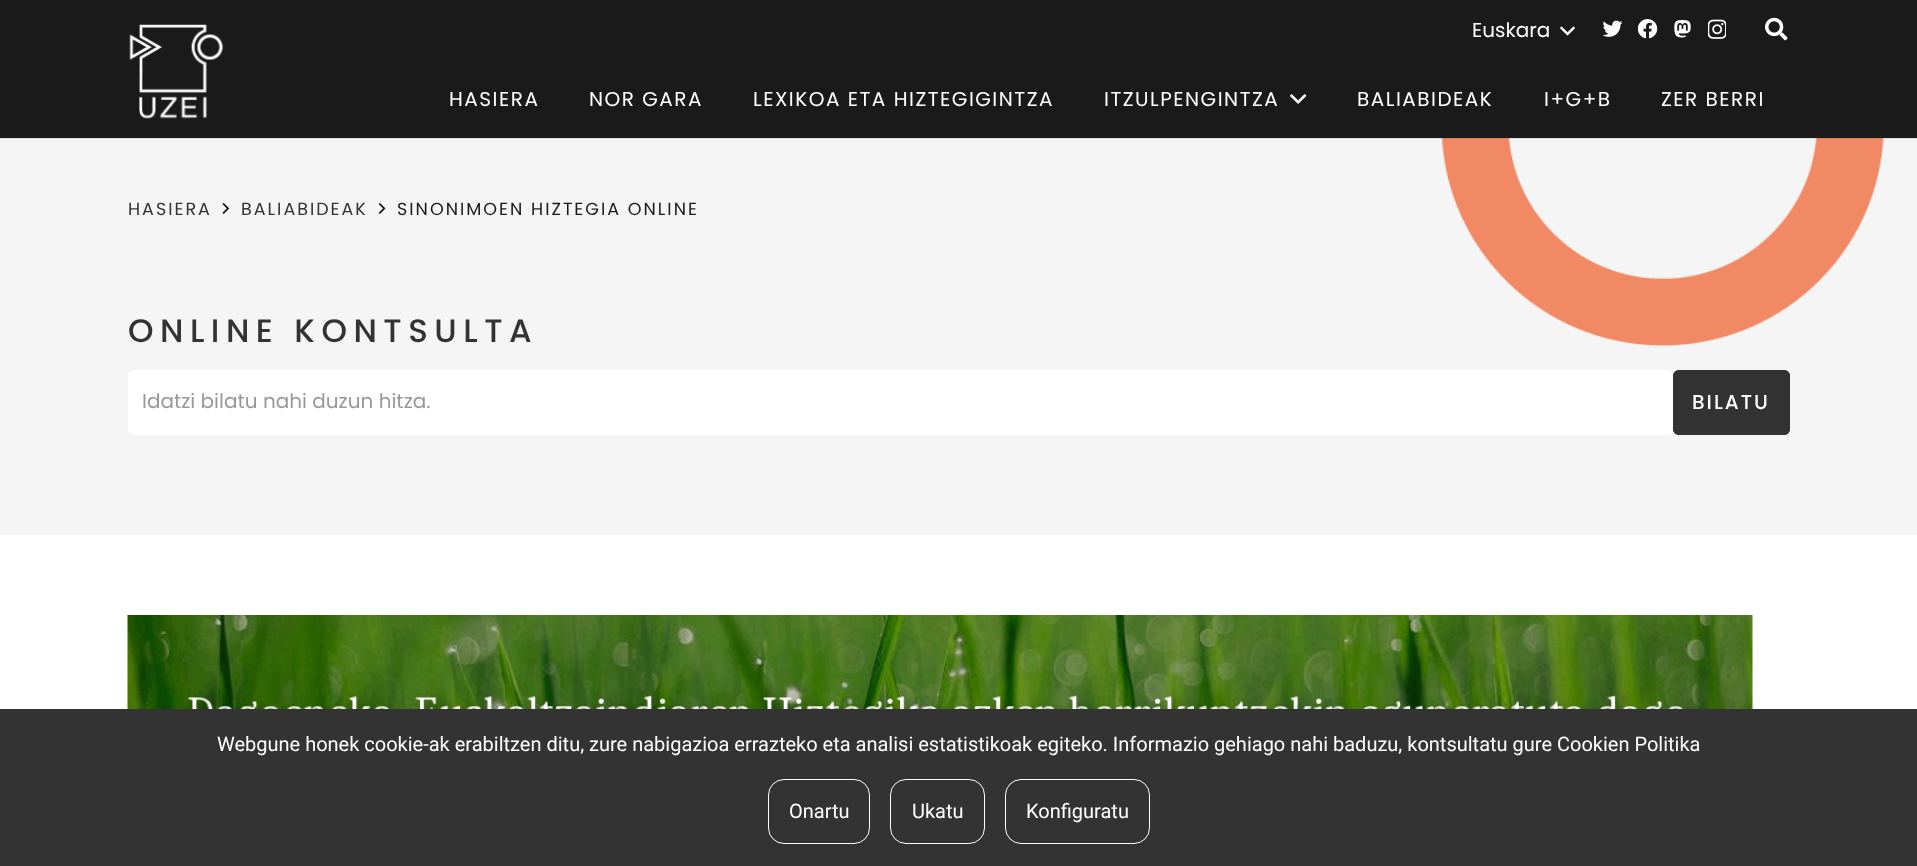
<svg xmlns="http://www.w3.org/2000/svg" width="1917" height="866">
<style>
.a{font:20px Poppins;fill:#fff}
.b{font:20px Poppins;letter-spacing:1.5px;fill:#fff}
.c{font:17.5px Poppins;letter-spacing:2px;fill:#333}
.d{font:17.5px Poppins;letter-spacing:2px;fill:#1a1a1a}
.e{font:500 32.5px Poppins;letter-spacing:6.5px;fill:#333}
.f{font:20px Poppins;fill:#999}
.g{font:500 20px Poppins;letter-spacing:2px;fill:#fff}
.h{font:20px Roboto;fill:#fff}
</style>
<rect width="100%" height="100%" fill="#fff"/>
<path fill="#1a1a1a" d="M0 0h1917v138H0z"/>
<image href="1.png" x="1560" y="26" width="15" height="10"/>
<image href="2.png" x="1603" y="20" width="20" height="17"/>
<image href="3.png" x="1638" y="19" width="20" height="20"/>
<image href="4.png" x="1674" y="20" width="17" height="18"/>
<image href="5.png" x="1708" y="19" width="18" height="20"/>
<image href="6.png" x="1765" y="17" width="23" height="24"/>
<path fill="#f5f5f5" d="M0 138h1917v397H0z"/>
<image href="9.png" x="1441" y="138" width="443" height="209"/>
<path fill="#00000014" d="M0 138v1h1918v-75v74z"/>
<image href="7.png" x="129" y="24" width="95" height="95"/>
<image href="8.png" x="1290" y="94" width="17" height="10"/>
<image href="10.png" x="222" y="203" width="7" height="11"/>
<image href="11.png" x="378" y="203" width="8" height="11"/>
<rect fill="#fff" x="128" y="370" width="1545" height="65" rx="6"/>
<rect fill="#333" x="1673" y="370" width="117" height="65" rx="6"/>
<rect fill="none" stroke="#333" stroke-width="5" x="1675.5" y="372.5" width="112" height="60" rx="3.5"/>
<image href="12.png" x="127" y="615" width="1626" height="94"/>
<path fill="#333" d="M0 709h1917v157H0z"/>
<rect fill="none" stroke="#fff" x="768.5" y="779.5" width="101" height="64" rx="15.5"/>
<rect fill="none" stroke="#fff" x="890.5" y="779.5" width="94" height="64" rx="15.5"/>
<rect fill="none" stroke="#fff" x="1005.5" y="779.5" width="144" height="64" rx="15.5"/>
<text class="a" x="1472" y="37">Euskara</text>
<text class="b" x="449" y="106">HASIERA</text>
<text class="b" x="589" y="106">NOR GARA</text>
<text class="b" x="753" y="106">LEXIKOA ETA HIZTEGIGINTZA</text>
<text class="b" x="1104" y="106">ITZULPENGINTZA</text>
<text class="b" x="1357" y="106">BALIABIDEAK</text>
<text class="b" x="1544" y="106">I+G+B</text>
<text class="b" x="1661" y="106">ZER BERRI</text>
<text class="c" x="128" y="215">HASIERA</text>
<text class="c" x="241" y="215">BALIABIDEAK</text>
<text class="d" x="397" y="215">SINONIMOEN HIZTEGIA ONLINE</text>
<text class="e" x="128" y="342">ONLINE KONTSULTA</text>
<text class="f" x="142" y="408">Idatzi bilatu nahi duzun hitza.</text>
<text class="g" x="1692" y="409">BILATU</text>
<text class="h" x="217" y="751">Webgune honek cookie-ak erabiltzen ditu, zure nabigazioa errazteko eta analisi estatistikoak egiteko. Informazio gehiago nahi baduzu, kontsultatu gure Cookien Politika</text>
<text class="h" x="789" y="818">Onartu</text>
<text class="h" x="912" y="818">Ukatu</text>
<text class="h" x="1026" y="818">Konfiguratu</text>
</svg>
